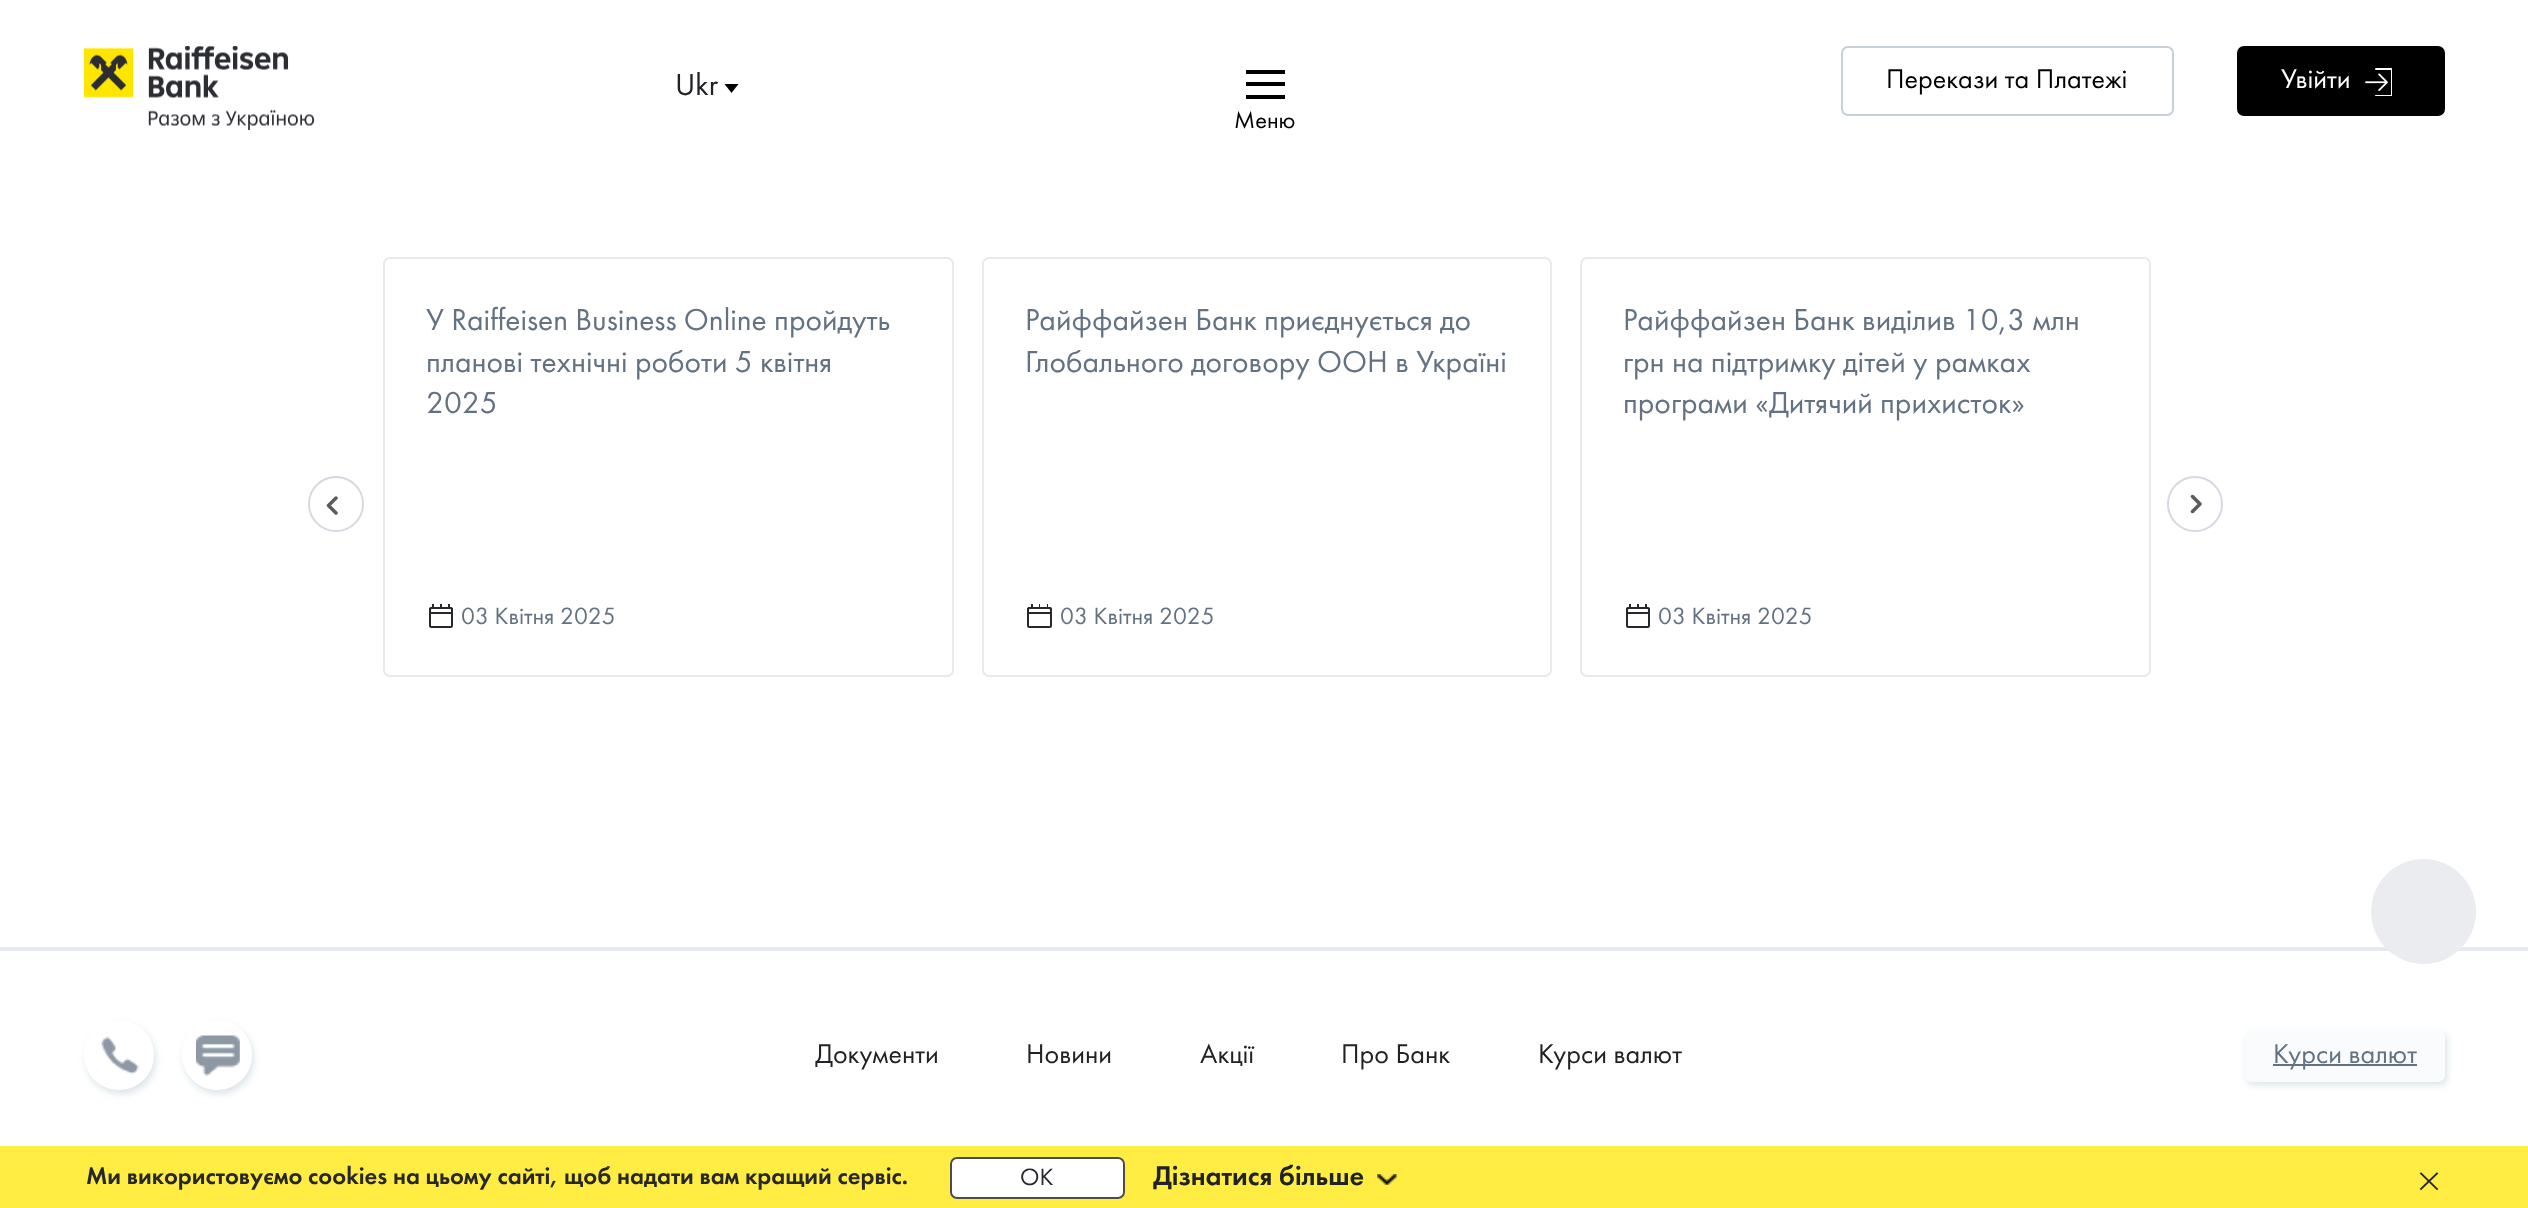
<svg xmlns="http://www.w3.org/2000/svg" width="2528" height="1208">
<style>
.a{font:31.5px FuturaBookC;fill:#212225}
.b{font:28px FuturaBookC;fill:#000}
.c{font:28px FuturaBookC;fill:#fff}
.d{font:24.5px FuturaBookC;fill:#000}
.e{font:31.5px FuturaBookC;fill:#637282}
.f{font:24.5px FuturaBookC;fill:#637282}
.g{font:28px FuturaBookC;fill:#212225}
.h{font:28px FuturaBookC;fill:#637282}
.i{font:600 24.5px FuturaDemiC;fill:#27282d}
.j{font:24.5px FuturaBookC;fill:#27282d}
.k{font:600 28px FuturaDemiC;fill:#212225}
</style>
<defs>
<clipPath id="clip1"><path d="M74 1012h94v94h-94zm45 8c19.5 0 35 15.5 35 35c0 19.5-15.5 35-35 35c-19.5 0-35-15.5-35-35c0-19.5 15.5-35 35-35z" clip-rule="evenodd"/></clipPath>
<clipPath id="clip2"><path d="M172 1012h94v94h-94zm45 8c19.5 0 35 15.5 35 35c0 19.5-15.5 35-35 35c-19.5 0-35-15.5-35-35c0-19.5 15.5-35 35-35z" clip-rule="evenodd"/></clipPath>
</defs>
<rect width="100%" height="100%" fill="#fff"/>
<image href="1.png" x="84" y="46" width="231" height="84"/>
<path fill="#000" d="M724.5 84h14l-7 9z"/>
<rect fill="none" stroke="#c6cfda" stroke-width="2" x="1842" y="47" width="331" height="68" rx="6"/>
<rect fill="#000" stroke="#000" stroke-width="2" x="2238" y="47" width="206" height="68" rx="6"/>
<image href="2.png" x="2365" y="68" width="27" height="28"/>
<path fill="#000" d="M1246 70h39v4H1246z"/>
<path fill="#000" d="M1246 82h39v4H1246z"/>
<path fill="#000" d="M1246 95h39v4H1246z"/>
<circle fill="none" stroke="#d6d8e2" stroke-width="2" cx="336" cy="504" r="27"/>
<path fill="none" stroke="#5c5b5b" stroke-width="3.5" stroke-linecap="round" stroke-linejoin="round" d="M336 513l-7.5-7.5l7.5-7.5"/>
<rect fill="none" stroke="#e8e9ed" stroke-width="2" x="384" y="258" width="569" height="418" rx="6"/>
<rect fill="none" stroke="#27282d" stroke-width="2" x="430" y="608" width="22" height="19" rx="1.5"/>
<rect fill="none" stroke="#27282d" stroke-width="2" x="430" y="608" width="22" height="5" rx="1.5"/>
<path fill="#27282d" d="M432 604h2v5H432z"/>
<path fill="#27282d" d="M448 604h2v5H448z"/>
<path fill="#27282d" d="M440 604h2v5H440z"/>
<rect fill="none" stroke="#e8e9ed" stroke-width="2" x="983" y="258" width="568" height="418" rx="6"/>
<rect fill="none" stroke="#27282d" stroke-width="2" x="1028" y="608" width="23" height="19" rx="1.5"/>
<rect fill="none" stroke="#27282d" stroke-width="2" x="1028" y="608" width="23" height="5" rx="1.5"/>
<path fill="#27282d" d="M1031 604h2v5H1031z"/>
<path fill="#27282d" d="M1047 604h1v5H1047z"/>
<path fill="#27282d" d="M1039 604h1v5H1039z"/>
<rect fill="none" stroke="#e8e9ed" stroke-width="2" x="1581" y="258" width="569" height="418" rx="6"/>
<rect fill="none" stroke="#27282d" stroke-width="2" x="1627" y="608" width="22" height="19" rx="1.5"/>
<rect fill="none" stroke="#27282d" stroke-width="2" x="1627" y="608" width="22" height="5" rx="1.5"/>
<path fill="#27282d" d="M1629 604h2v5H1629z"/>
<path fill="#27282d" d="M1645 604h2v5H1645z"/>
<path fill="#27282d" d="M1637 604h2v5H1637z"/>
<circle fill="none" stroke="#d6d8e2" stroke-width="2" cx="2195" cy="504" r="27"/>
<path fill="none" stroke="#5c5b5b" stroke-width="3.5" stroke-linecap="round" stroke-linejoin="round" d="M2192.5 496.5l7.5 7.5l-7.5 7.5"/>
<path fill="#e5e9f2" d="M0 947h2528v4H0z"/>
<circle fill="#ebecef" cx="2423.5" cy="911.5" r="52.5"/>
<g clip-path="url(#clip1)">
<rect fill="#85a4b04d" filter="blur(3.5px)" x="86" y="1024" width="70" height="70" rx="35"/>
</g>
<image href="3.png" x="101" y="1036" width="38" height="39"/>
<g clip-path="url(#clip2)">
<rect fill="#85a4b04d" filter="blur(3.5px)" x="184" y="1024" width="70" height="70" rx="35"/>
</g>
<image href="4.png" x="196" y="1035" width="44" height="41"/>
<rect fill="#85a4b04d" filter="blur(3.5px)" x="2247" y="1033" width="200" height="52" rx="7"/>
<rect fill="#f9fbfd" x="2245" y="1029" width="200" height="53" rx="7"/>
<path fill="#637282" d="M2273 1064h144v2H2273z"/>
<path fill="#ffed43" d="M0 1146h2528v62H0z"/>
<rect fill="#fff" x="950" y="1157" width="175" height="42" rx="7"/>
<rect fill="none" stroke="#000000b3" stroke-width="2" x="951" y="1158" width="173" height="40" rx="6"/>
<image href="5.png" x="1377" y="1174" width="20" height="11"/>
<path fill="none" stroke="#27282d" stroke-width="1.8" stroke-linecap="square" d="M2421 1189l16-15.5m-16 0l16 15.5"/>
<text class="a" x="675" y="95">Ukr</text>
<text class="b" x="1886" y="88">Перекази та Платежі</text>
<text class="c" x="2281" y="88">Увійти</text>
<text class="d" x="1234" y="128">Меню</text>
<text class="e" x="426" y="330">У Raiffeisen Business Online пройдуть</text>
<text class="e" x="426" y="372">планові технічні роботи 5 квітня</text>
<text class="e" x="426" y="413">2025</text>
<text class="f" x="461" y="624">03 Квітня 2025</text>
<text class="e" x="1025" y="330">Райффайзен Банк приєднується до</text>
<text class="e" x="1025" y="372">Глобального договору ООН в Україні</text>
<text class="f" x="1060" y="624">03 Квітня 2025</text>
<text class="e" x="1623" y="330">Райффайзен Банк виділив 10,3 млн</text>
<text class="e" x="1623" y="372">грн на підтримку дітей у рамках</text>
<text class="e" x="1623" y="413">програми «Дитячий прихисток»</text>
<text class="f" x="1658" y="624">03 Квітня 2025</text>
<text class="g" x="815" y="1063">Документи</text>
<text class="g" x="1026" y="1063">Новини</text>
<text class="g" x="1200" y="1063">Акції</text>
<text class="g" x="1341" y="1063">Про Банк</text>
<text class="g" x="1538" y="1063">Курси валют</text>
<text class="h" x="2273" y="1063">Курси валют</text>
<text class="i" x="86" y="1184">Ми використовуємо cookies на цьому сайті, щоб надати вам кращий сервіс.</text>
<text class="j" x="1020" y="1185">ОК</text>
<text class="k" x="1153" y="1185">Дізнатися більше</text>
</svg>
